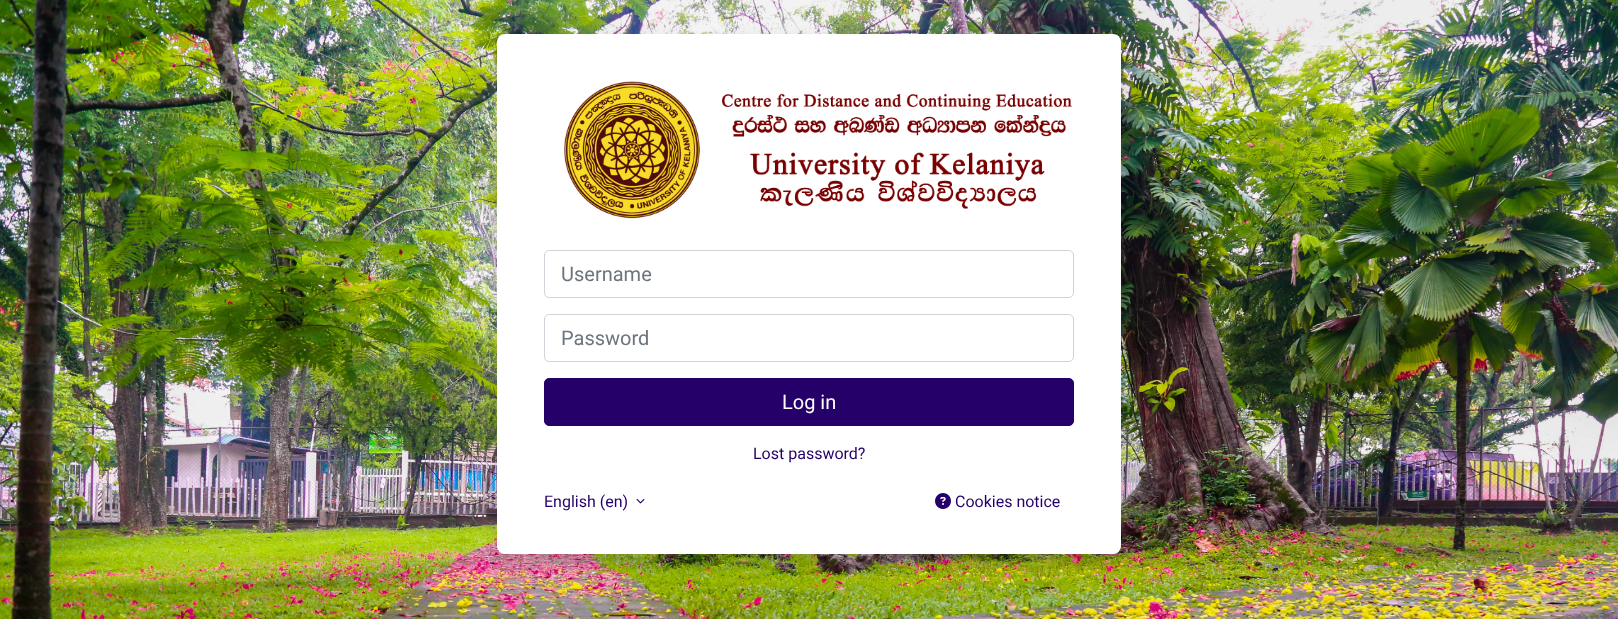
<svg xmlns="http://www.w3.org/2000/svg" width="1618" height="619">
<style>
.a{font:20px Roboto;fill:#6c757d}
.b{font:20px Roboto;fill:#fff}
.c{font:16px Roboto;fill:#250069}
</style>
<rect width="100%" height="100%" fill="#fff"/>
<image href="1.png" x="0" y="0" width="1618" height="619"/>
<rect fill="#00000026" filter="blur(8px)" x="497" y="42" width="624" height="520" rx="8"/>
<rect fill="#fff" x="497" y="34" width="624" height="520" rx="8"/>
<image href="2.png" x="564" y="81" width="508" height="138"/>
<rect fill="none" stroke="#ced4da" x="544.5" y="250.5" width="529" height="47" rx="4.5"/>
<rect fill="none" stroke="#ced4da" x="544.5" y="314.5" width="529" height="47" rx="4.5"/>
<rect fill="#250069" stroke="#250069" x="544.5" y="378.5" width="529" height="47" rx="4.5"/>
<image href="3.png" x="636" y="499" width="9" height="5"/>
<image href="4.png" x="935" y="493" width="16" height="16"/>
<text class="a" x="561" y="281">Username</text>
<text class="a" x="561" y="345">Password</text>
<text class="b" x="782" y="409">Log in</text>
<text class="c" x="753" y="459">Lost password?</text>
<text class="c" x="544" y="507">English (en)</text>
<text class="c" x="955" y="507">Cookies notice</text>
</svg>
